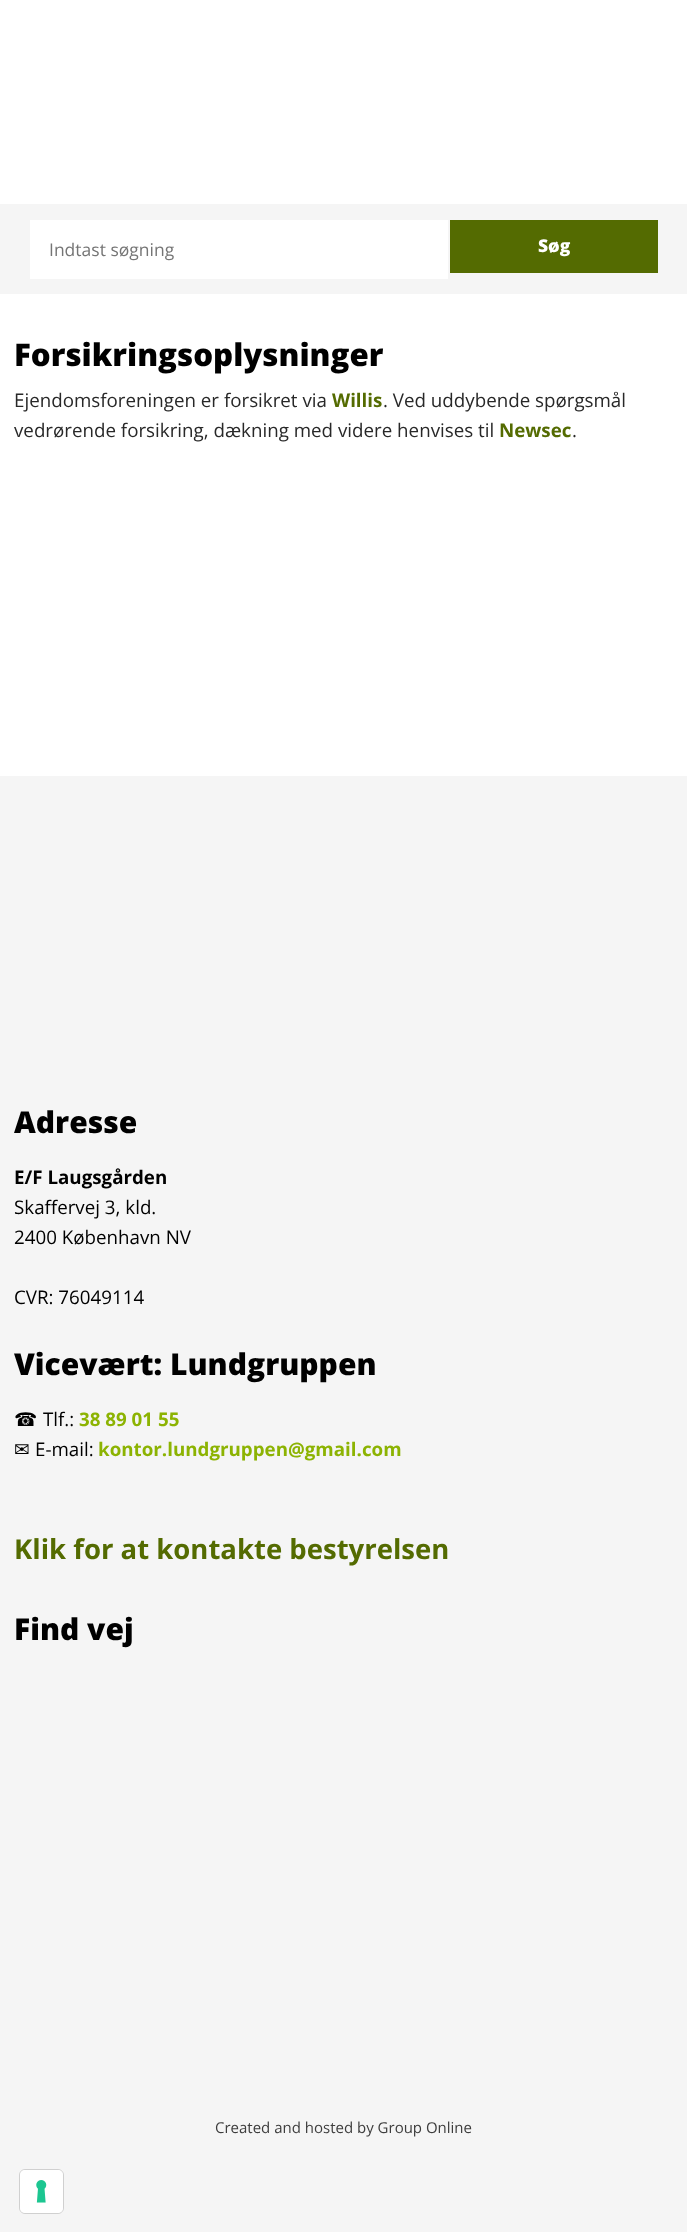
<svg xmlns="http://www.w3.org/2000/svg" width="687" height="2232">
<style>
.a{font:17.5px Open Sans;fill:#757575}
.b{font:800 17.5px Open Sans;fill:#fff}
.c{font:800 31.25px Open Sans;fill:#000}
.d{font:18.75px Open Sans;fill:#282828}
.e{font:bold 18.75px Open Sans;fill:#546b01}
.f{font:800 30px Open Sans;fill:#000}
.g{font:bold 18.75px Open Sans;fill:#000}
.h{font:18.75px Open Sans;fill:#000}
.i{font:18.75px DejaVu Sans;fill:#000}
.j{font:bold 18.75px Open Sans;fill:#8cb302}
.k{font:bold 27.5px Open Sans;fill:#546b01}
.l{font:15px Open Sans;fill:#3d3d3d}
</style>
<rect width="100%" height="100%" fill="#fff"/>
<path fill="#f5f5f5" d="M0 204h687v90H0z"/>
<path fill="#fff" d="M30 220h418v59H30z"/>
<path fill="#546b01" d="M450 220h208v53H450z"/>
<path fill="#f5f5f5" d="M0 776h687v1456H0z"/>
<rect fill="none" stroke="#d0d0d0" x="19.5" y="2169.5" width="44" height="44" rx="5.5"/>
<rect fill="#fff" x="20" y="2170" width="43" height="43" rx="5"/>
<image href="1.png" x="36" y="2180" width="11" height="23"/>
<text class="a" x="49" y="256">Indtast søgning</text>
<text class="b" x="538" y="252">Søg</text>
<text class="c" x="14" y="366">Forsikringsoplysninger</text>
<text class="d" x="14" y="407">Ejendomsforeningen er forsikret via</text>
<text class="e" x="332" y="407">Willis</text>
<text class="d" x="383" y="407">. Ved uddybende spørgsmål</text>
<text class="d" x="14" y="437">vedrørende forsikring, dækning med videre henvises til</text>
<text class="e" x="499" y="437">Newsec</text>
<text class="d" x="572" y="437">.</text>
<text class="f" x="14" y="1133">Adresse</text>
<text class="g" x="14" y="1184">E/F Laugsgården</text>
<text class="h" x="14" y="1214">Skaffervej 3, kld.</text>
<text class="h" x="14" y="1244">2400 København NV</text>
<text class="h" x="14" y="1304">CVR: 76049114</text>
<text class="f" x="14" y="1375">Vicevært: Lundgruppen</text>
<text class="i" x="14" y="1426">☎</text>
<text class="h" x="43" y="1426">Tlf.:</text>
<text class="j" x="79" y="1426">38 89 01 55</text>
<text class="i" x="14" y="1456">✉</text>
<text class="h" x="35" y="1456">E-mail:</text>
<text class="j" x="98" y="1456">kontor.lundgruppen@gmail.com</text>
<text class="k" x="14" y="1559">Klik for at kontakte bestyrelsen</text>
<text class="f" x="14" y="1640">Find vej</text>
<text class="l" x="215" y="2133">Created and hosted by Group Online</text>
</svg>
